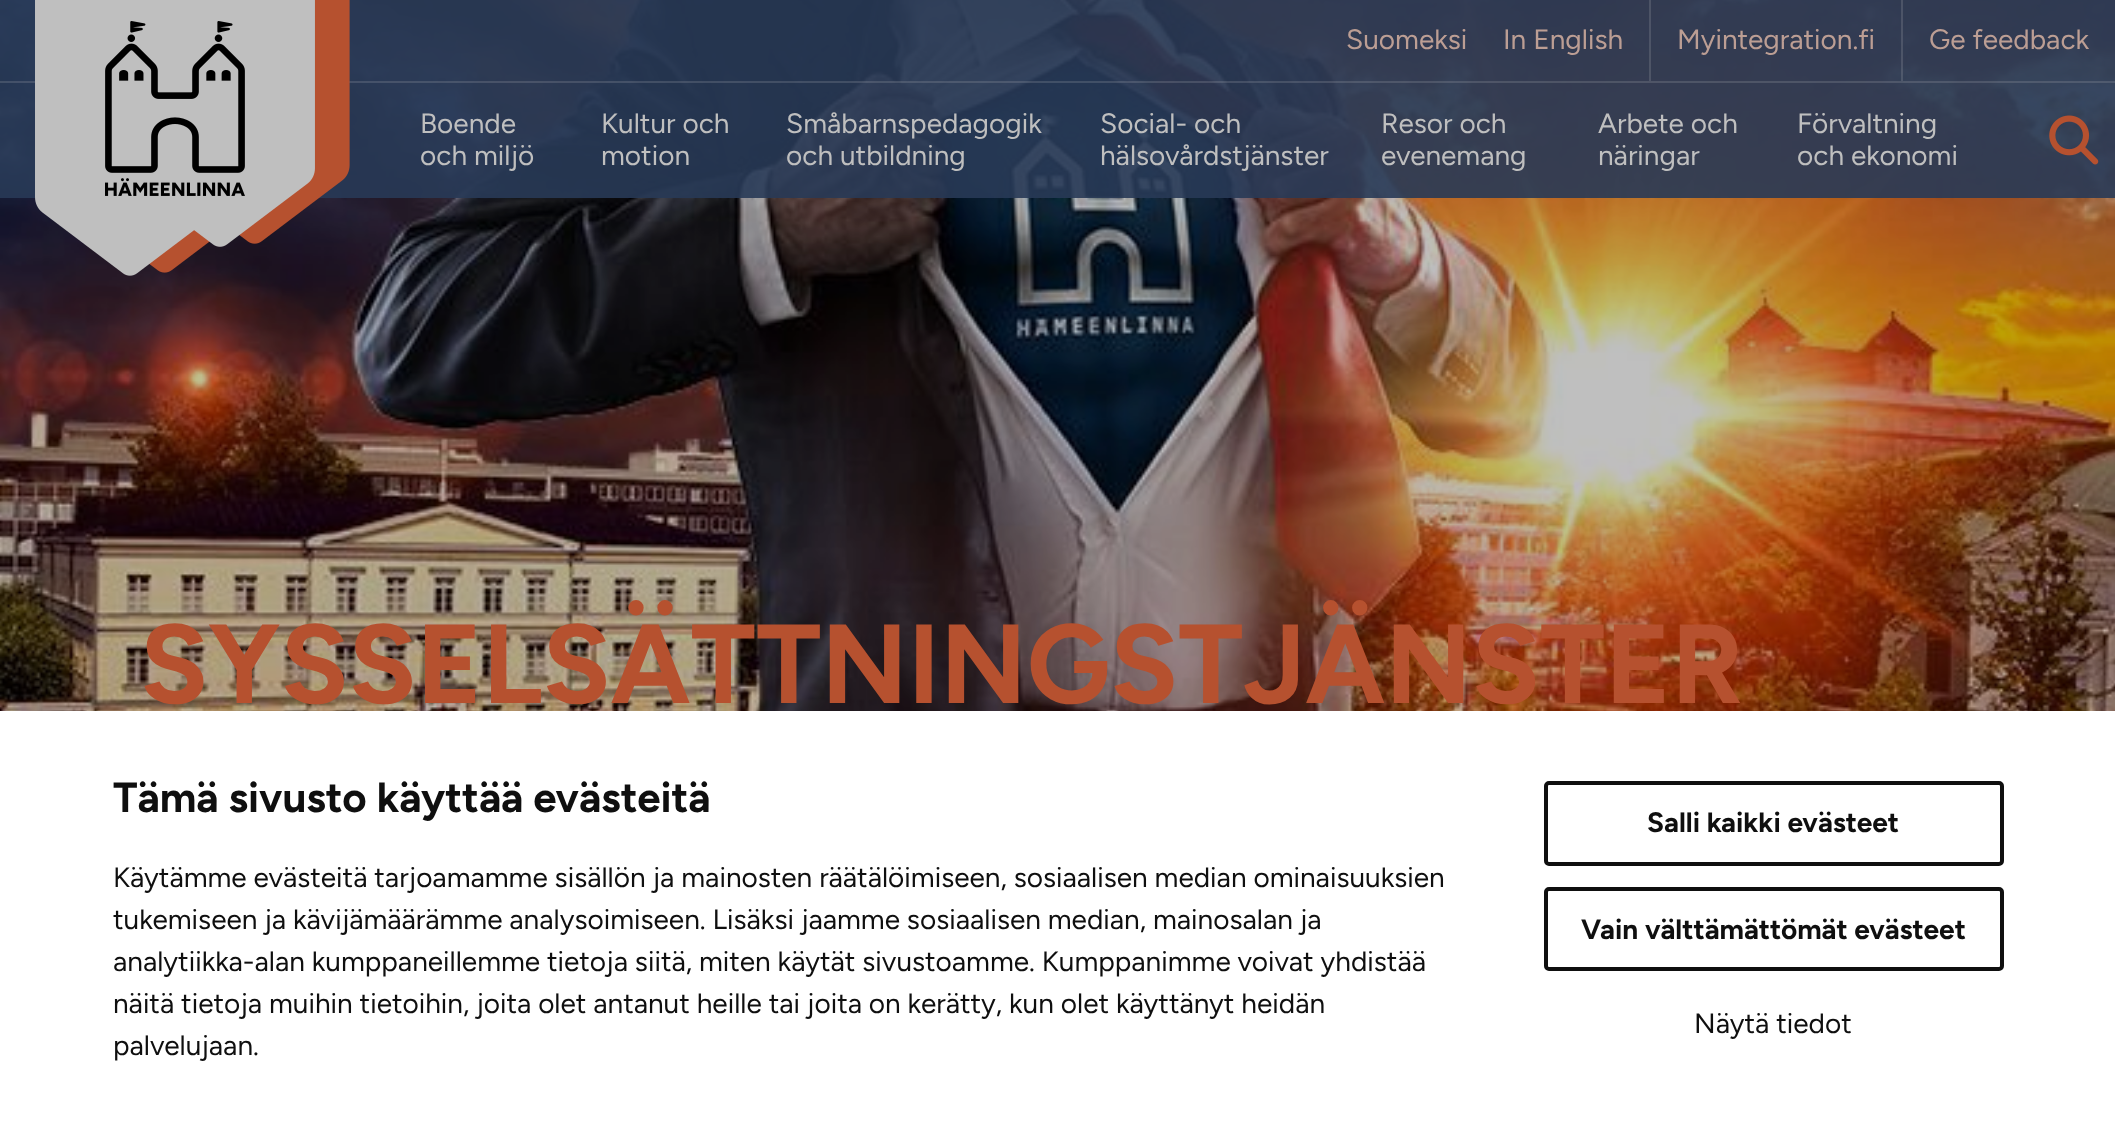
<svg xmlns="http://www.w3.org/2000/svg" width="2115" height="1123">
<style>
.a{font:300 28px 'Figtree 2';fill:#bc9e94}
.b{font:300 28px 'Figtree 2';fill:#bfbfbf}
.c{font:300 112px Figtree;fill:#b6512f}
.d{font:300 42px Figtree;fill:#0f0f0f}
.e{font:300 28px 'Figtree 2';fill:#0f0f0f}
.f{font:300 28px Figtree;fill:#0f0f0f}
</style>
<rect width="100%" height="100%" fill="#fff"/>
<image href="4.png" x="0" y="0" width="2115" height="711"/>
<path fill="#283a56e6" d="M0 0h2115v198H0z"/>
<path fill="#bbbbbc33" d="M0 81h2115v2H0z"/>
<image href="1.png" x="35" y="0" width="315" height="276"/>
<image href="2.png" x="105" y="21" width="140" height="175"/>
<path fill="#bbbbbc33" d="M1649 0h2v81H1649z"/>
<path fill="#bbbbbc33" d="M1901 0h2v81H1901z"/>
<image href="3.png" x="2049" y="115" width="50" height="50"/>
<rect fill="none" stroke="#0f0f0f" stroke-width="4" x="1546" y="783" width="456" height="81" rx="3"/>
<rect fill="none" stroke="#0f0f0f" stroke-width="4" x="1546" y="889" width="456" height="80" rx="3"/>
<text class="a" x="1346" y="49">Suomeksi</text>
<text class="a" x="1503" y="49">In English</text>
<text class="a" x="1677" y="49">Myintegration.fi</text>
<text class="a" x="1929" y="49">Ge feedback</text>
<text class="b" x="420" y="133">Boende</text>
<text class="b" x="420" y="165">och miljö</text>
<text class="b" x="601" y="133">Kultur och</text>
<text class="b" x="601" y="165">motion</text>
<text class="b" x="786" y="133">Småbarnspedagogik</text>
<text class="b" x="786" y="165">och utbildning</text>
<text class="b" x="1100" y="133">Social- och</text>
<text class="b" x="1100" y="165">hälsovårdstjänster</text>
<text class="b" x="1381" y="133">Resor och</text>
<text class="b" x="1381" y="165">evenemang</text>
<text class="b" x="1598" y="133">Arbete och</text>
<text class="b" x="1598" y="165">näringar</text>
<text class="b" x="1797" y="133">Förvaltning</text>
<text class="b" x="1797" y="165">och ekonomi</text>
<text class="c" x="140" y="703">SYSSELSÄTTNINGSTJÄNSTER</text>
<text class="d" x="113" y="812">Tämä sivusto käyttää evästeitä</text>
<text class="e" x="113" y="887">Käytämme evästeitä tarjoamamme sisällön ja mainosten räätälöimiseen, sosiaalisen median ominaisuuksien</text>
<text class="e" x="113" y="929">tukemiseen ja kävijämäärämme analysoimiseen. Lisäksi jaamme sosiaalisen median, mainosalan ja</text>
<text class="e" x="113" y="971">analytiikka-alan kumppaneillemme tietoja siitä, miten käytät sivustoamme. Kumppanimme voivat yhdistää</text>
<text class="e" x="113" y="1013">näitä tietoja muihin tietoihin, joita olet antanut heille tai joita on kerätty, kun olet käyttänyt heidän</text>
<text class="e" x="113" y="1055">palvelujaan.</text>
<text class="f" x="1647" y="832">Salli kaikki evästeet</text>
<text class="f" x="1581" y="939">Vain välttämättömät evästeet</text>
<text class="e" x="1694" y="1033">Näytä tiedot</text>
</svg>
